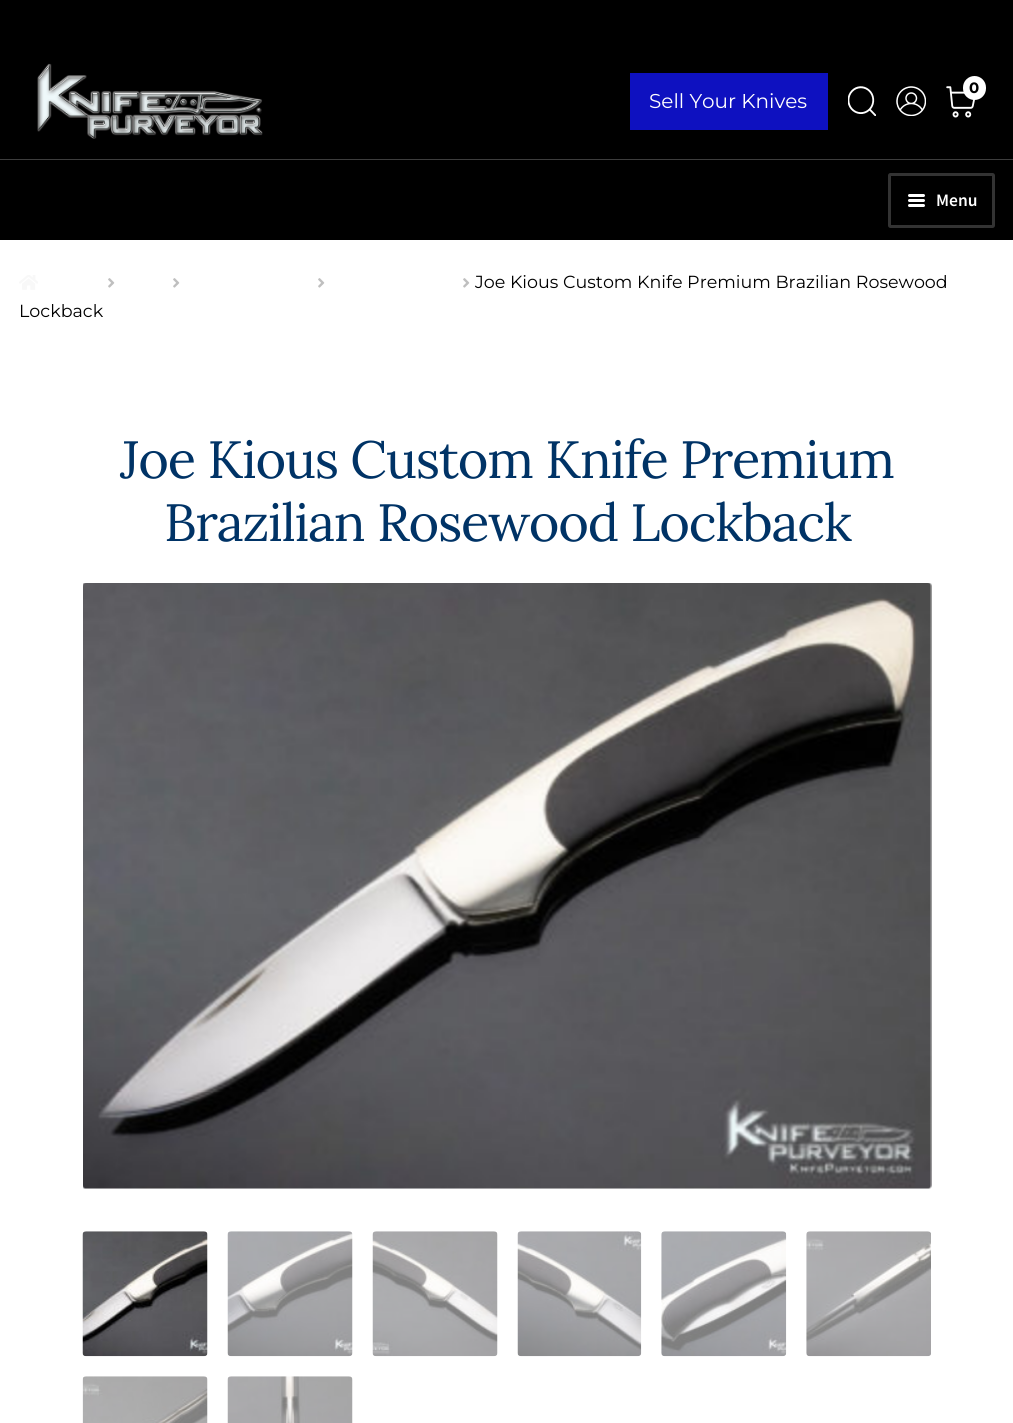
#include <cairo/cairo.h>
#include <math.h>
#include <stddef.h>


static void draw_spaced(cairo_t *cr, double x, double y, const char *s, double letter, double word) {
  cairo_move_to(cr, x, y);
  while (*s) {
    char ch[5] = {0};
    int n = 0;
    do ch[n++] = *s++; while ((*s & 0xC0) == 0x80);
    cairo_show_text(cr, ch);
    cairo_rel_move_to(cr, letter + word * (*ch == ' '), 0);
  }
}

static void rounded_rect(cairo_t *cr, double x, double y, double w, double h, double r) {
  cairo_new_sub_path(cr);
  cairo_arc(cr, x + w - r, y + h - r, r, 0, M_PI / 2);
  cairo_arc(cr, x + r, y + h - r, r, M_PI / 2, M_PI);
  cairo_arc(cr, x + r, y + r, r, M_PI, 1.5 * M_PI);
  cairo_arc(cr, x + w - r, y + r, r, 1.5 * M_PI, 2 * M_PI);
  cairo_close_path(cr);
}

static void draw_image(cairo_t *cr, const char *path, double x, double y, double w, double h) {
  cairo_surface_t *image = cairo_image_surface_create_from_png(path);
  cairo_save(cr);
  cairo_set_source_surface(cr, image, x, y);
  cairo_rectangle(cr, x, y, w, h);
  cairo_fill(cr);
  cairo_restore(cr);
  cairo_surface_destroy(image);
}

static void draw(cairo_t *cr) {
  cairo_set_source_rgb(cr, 1, 1, 1);
  cairo_paint(cr);
  cairo_set_source_rgb(cr, 0, 0, 0);
  cairo_rectangle(cr, 0, 0, 1013, 240);
  cairo_fill(cr);
  draw_image(cr, "images/1.png", 37, 63, 226, 76);
  cairo_set_source_rgb(cr, 14 / 255.0, 17 / 255.0, 192 / 255.0);
  cairo_rectangle(cr, 630, 73, 198, 57);
  cairo_fill(cr);
  draw_image(cr, "images/2.png", 848, 86, 28, 30);
  draw_image(cr, "images/3.png", 896, 86, 30, 30);
  draw_image(cr, "images/4.png", 946, 86, 30, 32);
  cairo_set_source_rgb(cr, 1, 1, 1);
  rounded_rect(cr, 963, 76, 23, 24, 11.5);
  cairo_fill(cr);
  cairo_set_source_rgb(cr, 61 / 255.0, 61 / 255.0, 61 / 255.0);
  cairo_rectangle(cr, 0, 159, 1013, 1);
  cairo_fill(cr);
  rounded_rect(cr, 889.5, 174.5, 104, 52, 1);
  cairo_set_source_rgb(cr, 51 / 255.0, 51 / 255.0, 51 / 255.0);
  cairo_set_line_width(cr, 3);
  cairo_stroke(cr);
  cairo_set_source_rgb(cr, 1, 1, 1);
  rounded_rect(cr, 908, 194, 17, 3, 1.5);
  cairo_fill(cr);
  rounded_rect(cr, 908, 199, 17, 3, 1.5);
  cairo_fill(cr);
  rounded_rect(cr, 908, 204, 17, 3, 1.5);
  cairo_fill(cr);
  draw_image(cr, "images/5.png", 19, 275, 19, 15);
  draw_image(cr, "images/6.png", 108, 278, 7, 10);
  draw_image(cr, "images/6.png", 173, 278, 7, 10);
  draw_image(cr, "images/6.png", 318, 278, 7, 10);
  draw_image(cr, "images/6.png", 463, 278, 7, 10);
  draw_image(cr, "images/7.png", 83, 583, 849, 606);
  draw_image(cr, "images/8.png", 82, 1231, 126, 126);
  draw_image(cr, "images/9.png", 227, 1231, 126, 126);
  draw_image(cr, "images/10.png", 372, 1231, 126, 126);
  draw_image(cr, "images/11.png", 517, 1231, 125, 126);
  draw_image(cr, "images/12.png", 661, 1231, 126, 126);
  draw_image(cr, "images/13.png", 806, 1231, 125, 126);
  draw_image(cr, "images/14.png", 82, 1376, 126, 47);
  draw_image(cr, "images/15.png", 227, 1376, 126, 47);
  cairo_select_font_face(cr, "Montserrat Thin", CAIRO_FONT_SLANT_NORMAL, CAIRO_FONT_WEIGHT_NORMAL);
  cairo_set_font_size(cr, 20);
  cairo_move_to(cr, 649, 108);
  cairo_show_text(cr, "Sell Your Knives");
  cairo_select_font_face(cr, "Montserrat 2 Thin", CAIRO_FONT_SLANT_NORMAL, CAIRO_FONT_WEIGHT_NORMAL);
  cairo_set_font_size(cr, 15);
  cairo_set_source_rgb(cr, 0, 0, 0);
  cairo_move_to(cr, 969, 93);
  cairo_show_text(cr, "0");
  cairo_select_font_face(cr, "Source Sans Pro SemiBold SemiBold", CAIRO_FONT_SLANT_NORMAL, CAIRO_FONT_WEIGHT_NORMAL);
  cairo_set_font_size(cr, 17.5);
  cairo_set_source_rgb(cr, 1, 1, 1);
  cairo_move_to(cr, 936, 206);
  cairo_show_text(cr, "Menu");
  cairo_select_font_face(cr, "Montserrat Thin", CAIRO_FONT_SLANT_NORMAL, CAIRO_FONT_WEIGHT_NORMAL);
  cairo_set_source_rgb(cr, 0, 0, 0);
  cairo_move_to(cr, 475, 288);
  cairo_show_text(cr, "Joe Kious Custom Knife Premium Brazilian Rosewood");
  cairo_move_to(cr, 19, 317);
  cairo_show_text(cr, "Lockback");
  cairo_select_font_face(cr, "Lora", CAIRO_FONT_SLANT_NORMAL, CAIRO_FONT_WEIGHT_NORMAL);
  cairo_set_font_size(cr, 52.4);
  cairo_set_source_rgb(cr, 0, 51 / 255.0, 102 / 255.0);
  draw_spaced(cr, 120, 478, "Joe Kious Custom Knife Premium", -1.25, 0);
  draw_spaced(cr, 164, 541, "Brazilian Rosewood Lockback", -1.25, 0);
}

int main(void) {
  cairo_surface_t *surface = cairo_image_surface_create(CAIRO_FORMAT_RGB24, 1013, 1423);
  cairo_t *cr = cairo_create(surface);
  cairo_font_options_t *options = cairo_font_options_create();
  cairo_font_options_set_hint_metrics(options, CAIRO_HINT_METRICS_OFF);
  cairo_font_options_set_hint_style(options, CAIRO_HINT_STYLE_NONE);
  cairo_set_font_options(cr, options);
  cairo_set_miter_limit(cr, 4);
  draw(cr);
  cairo_surface_write_to_png(surface, "out.png");
  cairo_font_options_destroy(options);
  cairo_destroy(cr);
  cairo_surface_destroy(surface);
  return 0;
}
